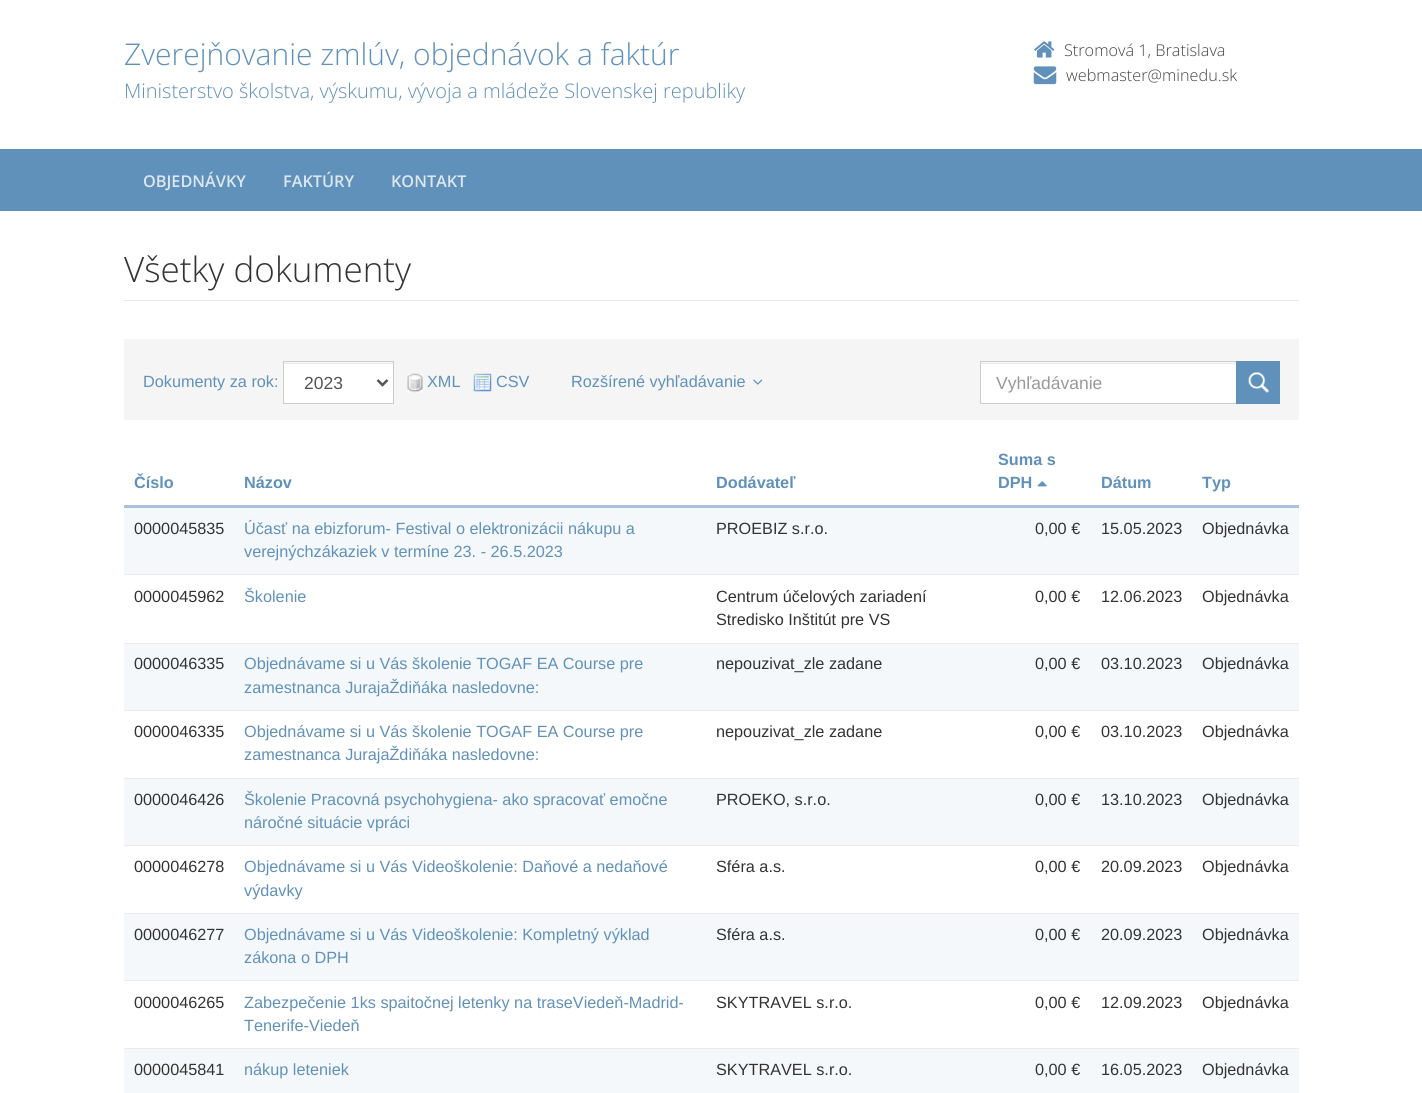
#include <cairo/cairo.h>
#include <math.h>
#include <stddef.h>


static void draw_image(cairo_t *cr, const char *path, double x, double y, double w, double h) {
  cairo_surface_t *image = cairo_image_surface_create_from_png(path);
  cairo_save(cr);
  cairo_set_source_surface(cr, image, x, y);
  cairo_rectangle(cr, x, y, w, h);
  cairo_fill(cr);
  cairo_restore(cr);
  cairo_surface_destroy(image);
}

static void draw(cairo_t *cr) {
  cairo_set_source_rgb(cr, 1, 1, 1);
  cairo_paint(cr);
  draw_image(cr, "images/1.png", 1034, 41, 21, 17);
  draw_image(cr, "images/2.png", 1033, 66, 24, 19);
  cairo_set_source_rgb(cr, 96 / 255.0, 145 / 255.0, 186 / 255.0);
  cairo_rectangle(cr, 0, 149, 1422, 62);
  cairo_fill(cr);
  cairo_set_source_rgb(cr, 232 / 255.0, 232 / 255.0, 232 / 255.0);
  cairo_rectangle(cr, 124, 300, 1175, 1);
  cairo_fill(cr);
  cairo_set_source_rgb(cr, 245 / 255.0, 245 / 255.0, 245 / 255.0);
  cairo_rectangle(cr, 124, 339, 1175, 81);
  cairo_fill(cr);
  cairo_set_source_rgb(cr, 1, 1, 1);
  cairo_rectangle(cr, 284, 364, 109, 39);
  cairo_fill(cr);
  cairo_set_source_rgb(cr, 236 / 255.0, 236 / 255.0, 236 / 255.0);
  cairo_rectangle(cr, 284, 363, 109, 1);
  cairo_fill(cr);
  cairo_rectangle(cr, 283.5, 361.5, 110, 42);
  cairo_set_source_rgb(cr, 204 / 255.0, 204 / 255.0, 204 / 255.0);
  cairo_set_line_width(cr, 1);
  cairo_stroke(cr);
  cairo_new_path(cr);
  cairo_move_to(cr, 377.5, 380);
  cairo_line_to(cr, 382.5, 385);
  cairo_line_to(cr, 387.5, 380);
  cairo_set_source_rgb(cr, 85 / 255.0, 85 / 255.0, 85 / 255.0);
  cairo_set_line_width(cr, 2.5);
  cairo_stroke(cr);
  draw_image(cr, "images/3.png", 407, 373, 16, 20);
  draw_image(cr, "images/4.png", 473, 373, 19, 19);
  draw_image(cr, "images/5.png", 753, 379, 10, 6);
  cairo_set_source_rgb(cr, 1, 1, 1);
  cairo_rectangle(cr, 981, 364, 255, 39);
  cairo_fill(cr);
  cairo_set_source_rgb(cr, 236 / 255.0, 236 / 255.0, 236 / 255.0);
  cairo_rectangle(cr, 981, 363, 257, 1);
  cairo_fill(cr);
  cairo_rectangle(cr, 980.5, 361.5, 258, 42);
  cairo_set_source_rgb(cr, 204 / 255.0, 204 / 255.0, 204 / 255.0);
  cairo_set_line_width(cr, 1);
  cairo_stroke(cr);
  cairo_set_source_rgb(cr, 96 / 255.0, 145 / 255.0, 186 / 255.0);
  cairo_rectangle(cr, 1236, 361, 44, 43);
  cairo_fill(cr);
  draw_image(cr, "images/6.png", 1248, 372, 21, 21);
  draw_image(cr, "images/7.png", 1037, 481, 10, 6);
  cairo_set_source_rgb(cr, 167 / 255.0, 194 / 255.0, 217 / 255.0);
  cairo_rectangle(cr, 124, 505, 1175, 3);
  cairo_fill(cr);
  cairo_set_source_rgb(cr, 245 / 255.0, 248 / 255.0, 251 / 255.0);
  cairo_rectangle(cr, 124, 508, 1175, 66);
  cairo_fill(cr);
  cairo_set_source_rgb(cr, 235 / 255.0, 235 / 255.0, 235 / 255.0);
  cairo_rectangle(cr, 124, 574, 1175, 1);
  cairo_fill(cr);
  cairo_set_source_rgb(cr, 245 / 255.0, 248 / 255.0, 251 / 255.0);
  cairo_rectangle(cr, 124, 644, 1175, 66);
  cairo_fill(cr);
  cairo_set_source_rgb(cr, 235 / 255.0, 235 / 255.0, 235 / 255.0);
  cairo_rectangle(cr, 124, 643, 1175, 1);
  cairo_fill(cr);
  cairo_rectangle(cr, 124, 710, 1175, 1);
  cairo_fill(cr);
  cairo_set_source_rgb(cr, 245 / 255.0, 248 / 255.0, 251 / 255.0);
  cairo_rectangle(cr, 124, 779, 1175, 66);
  cairo_fill(cr);
  cairo_set_source_rgb(cr, 235 / 255.0, 235 / 255.0, 235 / 255.0);
  cairo_rectangle(cr, 124, 778, 1175, 1);
  cairo_fill(cr);
  cairo_rectangle(cr, 124, 845, 1175, 1);
  cairo_fill(cr);
  cairo_set_source_rgb(cr, 245 / 255.0, 248 / 255.0, 251 / 255.0);
  cairo_rectangle(cr, 124, 914, 1175, 66);
  cairo_fill(cr);
  cairo_set_source_rgb(cr, 235 / 255.0, 235 / 255.0, 235 / 255.0);
  cairo_rectangle(cr, 124, 913, 1175, 1);
  cairo_fill(cr);
  cairo_rectangle(cr, 124, 980, 1175, 1);
  cairo_fill(cr);
  cairo_set_source_rgb(cr, 245 / 255.0, 248 / 255.0, 251 / 255.0);
  cairo_rectangle(cr, 124, 1049, 1175, 44);
  cairo_fill(cr);
  cairo_set_source_rgb(cr, 235 / 255.0, 235 / 255.0, 235 / 255.0);
  cairo_rectangle(cr, 124, 1048, 1175, 1);
  cairo_fill(cr);
  cairo_select_font_face(cr, "Open Sans Light", CAIRO_FONT_SLANT_NORMAL, CAIRO_FONT_WEIGHT_NORMAL);
  cairo_set_font_size(cr, 30);
  cairo_set_source_rgb(cr, 96 / 255.0, 145 / 255.0, 186 / 255.0);
  cairo_move_to(cr, 124, 65);
  cairo_show_text(cr, "Zverejňovanie zmlúv, objednávok a faktúr");
  cairo_set_font_size(cr, 20);
  cairo_move_to(cr, 124, 98);
  cairo_show_text(cr, "Ministerstvo školstva, výskumu, vývoja a mládeže Slovenskej republiky");
  cairo_set_font_size(cr, 16.25);
  cairo_set_source_rgb(cr, 68 / 255.0, 68 / 255.0, 68 / 255.0);
  cairo_move_to(cr, 1064, 56);
  cairo_show_text(cr, "Stromová 1, Bratislava");
  cairo_move_to(cr, 1066, 81);
  cairo_show_text(cr, "webmaster@minedu.sk");
  cairo_select_font_face(cr, "Open Sans SemiBold", CAIRO_FONT_SLANT_NORMAL, CAIRO_FONT_WEIGHT_NORMAL);
  cairo_set_source_rgb(cr, 220 / 255.0, 231 / 255.0, 240 / 255.0);
  cairo_move_to(cr, 143, 187);
  cairo_show_text(cr, "OBJEDNÁVKY");
  cairo_move_to(cr, 283, 187);
  cairo_show_text(cr, "FAKTÚRY");
  cairo_move_to(cr, 391, 187);
  cairo_show_text(cr, "KONTAKT");
  cairo_select_font_face(cr, "Open Sans Light", CAIRO_FONT_SLANT_NORMAL, CAIRO_FONT_WEIGHT_NORMAL);
  cairo_set_font_size(cr, 35);
  cairo_set_source_rgb(cr, 51 / 255.0, 51 / 255.0, 51 / 255.0);
  cairo_move_to(cr, 124, 282);
  cairo_show_text(cr, "Všetky dokumenty");
  cairo_select_font_face(cr, "Liberation Sans", CAIRO_FONT_SLANT_NORMAL, CAIRO_FONT_WEIGHT_NORMAL);
  cairo_set_font_size(cr, 16.25);
  cairo_set_source_rgb(cr, 96 / 255.0, 145 / 255.0, 186 / 255.0);
  cairo_move_to(cr, 143, 387);
  cairo_show_text(cr, "Dokumenty za rok:");
  cairo_set_font_size(cr, 17.5);
  cairo_set_source_rgb(cr, 85 / 255.0, 85 / 255.0, 85 / 255.0);
  cairo_move_to(cr, 304, 389);
  cairo_show_text(cr, "2023");
  cairo_set_font_size(cr, 16.25);
  cairo_set_source_rgb(cr, 96 / 255.0, 145 / 255.0, 186 / 255.0);
  cairo_move_to(cr, 427, 387);
  cairo_show_text(cr, "XML");
  cairo_move_to(cr, 496, 387);
  cairo_show_text(cr, "CSV");
  cairo_move_to(cr, 571, 387);
  cairo_show_text(cr, "Rozšírené vyhľadávanie");
  cairo_set_font_size(cr, 17.5);
  cairo_set_source_rgb(cr, 153 / 255.0, 153 / 255.0, 153 / 255.0);
  cairo_move_to(cr, 996, 389);
  cairo_show_text(cr, "Vyhľadávanie");
  cairo_select_font_face(cr, "Liberation Sans", CAIRO_FONT_SLANT_NORMAL, CAIRO_FONT_WEIGHT_BOLD);
  cairo_set_font_size(cr, 16.25);
  cairo_set_source_rgb(cr, 96 / 255.0, 145 / 255.0, 186 / 255.0);
  cairo_move_to(cr, 134, 488);
  cairo_show_text(cr, "Číslo");
  cairo_move_to(cr, 244, 488);
  cairo_show_text(cr, "Názov");
  cairo_move_to(cr, 716, 488);
  cairo_show_text(cr, "Dodávateľ");
  cairo_move_to(cr, 998, 465);
  cairo_show_text(cr, "Suma s");
  cairo_move_to(cr, 998, 488);
  cairo_show_text(cr, "DPH");
  cairo_move_to(cr, 1101, 488);
  cairo_show_text(cr, "Dátum");
  cairo_move_to(cr, 1202, 488);
  cairo_show_text(cr, "Typ");
  cairo_select_font_face(cr, "Liberation Sans", CAIRO_FONT_SLANT_NORMAL, CAIRO_FONT_WEIGHT_NORMAL);
  cairo_set_source_rgb(cr, 51 / 255.0, 51 / 255.0, 51 / 255.0);
  cairo_move_to(cr, 134, 534);
  cairo_show_text(cr, "0000045835");
  cairo_set_source_rgb(cr, 96 / 255.0, 145 / 255.0, 186 / 255.0);
  cairo_move_to(cr, 244, 534);
  cairo_show_text(cr, "Účasť na ebizforum- Festival o elektronizácii nákupu a");
  cairo_move_to(cr, 244, 557);
  cairo_show_text(cr, "verejnýchzákaziek v termíne 23. - 26.5.2023");
  cairo_set_source_rgb(cr, 51 / 255.0, 51 / 255.0, 51 / 255.0);
  cairo_move_to(cr, 716, 534);
  cairo_show_text(cr, "PROEBIZ s.r.o.");
  cairo_move_to(cr, 1035, 534);
  cairo_show_text(cr, "0,00 €");
  cairo_move_to(cr, 1101, 534);
  cairo_show_text(cr, "15.05.2023");
  cairo_move_to(cr, 1202, 534);
  cairo_show_text(cr, "Objednávka");
  cairo_move_to(cr, 134, 602);
  cairo_show_text(cr, "0000045962");
  cairo_set_source_rgb(cr, 96 / 255.0, 145 / 255.0, 186 / 255.0);
  cairo_move_to(cr, 244, 602);
  cairo_show_text(cr, "Školenie");
  cairo_set_source_rgb(cr, 51 / 255.0, 51 / 255.0, 51 / 255.0);
  cairo_move_to(cr, 716, 602);
  cairo_show_text(cr, "Centrum účelových zariadení");
  cairo_move_to(cr, 716, 625);
  cairo_show_text(cr, "Stredisko Inštitút pre VS");
  cairo_move_to(cr, 1035, 602);
  cairo_show_text(cr, "0,00 €");
  cairo_move_to(cr, 1101, 602);
  cairo_show_text(cr, "12.06.2023");
  cairo_move_to(cr, 1202, 602);
  cairo_show_text(cr, "Objednávka");
  cairo_move_to(cr, 134, 669);
  cairo_show_text(cr, "0000046335");
  cairo_set_source_rgb(cr, 96 / 255.0, 145 / 255.0, 186 / 255.0);
  cairo_move_to(cr, 244, 669);
  cairo_show_text(cr, "Objednávame si u Vás školenie TOGAF EA Course pre");
  cairo_move_to(cr, 244, 693);
  cairo_show_text(cr, "zamestnanca JurajaŽdiňáka nasledovne:");
  cairo_set_source_rgb(cr, 51 / 255.0, 51 / 255.0, 51 / 255.0);
  cairo_move_to(cr, 716, 669);
  cairo_show_text(cr, "nepouzivat_zle zadane");
  cairo_move_to(cr, 1035, 669);
  cairo_show_text(cr, "0,00 €");
  cairo_move_to(cr, 1101, 669);
  cairo_show_text(cr, "03.10.2023");
  cairo_move_to(cr, 1202, 669);
  cairo_show_text(cr, "Objednávka");
  cairo_move_to(cr, 134, 737);
  cairo_show_text(cr, "0000046335");
  cairo_set_source_rgb(cr, 96 / 255.0, 145 / 255.0, 186 / 255.0);
  cairo_move_to(cr, 244, 737);
  cairo_show_text(cr, "Objednávame si u Vás školenie TOGAF EA Course pre");
  cairo_move_to(cr, 244, 760);
  cairo_show_text(cr, "zamestnanca JurajaŽdiňáka nasledovne:");
  cairo_set_source_rgb(cr, 51 / 255.0, 51 / 255.0, 51 / 255.0);
  cairo_move_to(cr, 716, 737);
  cairo_show_text(cr, "nepouzivat_zle zadane");
  cairo_move_to(cr, 1035, 737);
  cairo_show_text(cr, "0,00 €");
  cairo_move_to(cr, 1101, 737);
  cairo_show_text(cr, "03.10.2023");
  cairo_move_to(cr, 1202, 737);
  cairo_show_text(cr, "Objednávka");
  cairo_move_to(cr, 134, 805);
  cairo_show_text(cr, "0000046426");
  cairo_set_source_rgb(cr, 96 / 255.0, 145 / 255.0, 186 / 255.0);
  cairo_move_to(cr, 244, 805);
  cairo_show_text(cr, "Školenie Pracovná psychohygiena- ako spracovať emočne");
  cairo_move_to(cr, 244, 828);
  cairo_show_text(cr, "náročné situácie vpráci");
  cairo_set_source_rgb(cr, 51 / 255.0, 51 / 255.0, 51 / 255.0);
  cairo_move_to(cr, 716, 805);
  cairo_show_text(cr, "PROEKO, s.r.o.");
  cairo_move_to(cr, 1035, 805);
  cairo_show_text(cr, "0,00 €");
  cairo_move_to(cr, 1101, 805);
  cairo_show_text(cr, "13.10.2023");
  cairo_move_to(cr, 1202, 805);
  cairo_show_text(cr, "Objednávka");
  cairo_move_to(cr, 134, 872);
  cairo_show_text(cr, "0000046278");
  cairo_set_source_rgb(cr, 96 / 255.0, 145 / 255.0, 186 / 255.0);
  cairo_move_to(cr, 244, 872);
  cairo_show_text(cr, "Objednávame si u Vás Videoškolenie: Daňové a nedaňové");
  cairo_move_to(cr, 244, 896);
  cairo_show_text(cr, "výdavky");
  cairo_set_source_rgb(cr, 51 / 255.0, 51 / 255.0, 51 / 255.0);
  cairo_move_to(cr, 716, 872);
  cairo_show_text(cr, "Sféra a.s.");
  cairo_move_to(cr, 1035, 872);
  cairo_show_text(cr, "0,00 €");
  cairo_move_to(cr, 1101, 872);
  cairo_show_text(cr, "20.09.2023");
  cairo_move_to(cr, 1202, 872);
  cairo_show_text(cr, "Objednávka");
  cairo_move_to(cr, 134, 940);
  cairo_show_text(cr, "0000046277");
  cairo_set_source_rgb(cr, 96 / 255.0, 145 / 255.0, 186 / 255.0);
  cairo_move_to(cr, 244, 940);
  cairo_show_text(cr, "Objednávame si u Vás Videoškolenie: Kompletný výklad");
  cairo_move_to(cr, 244, 963);
  cairo_show_text(cr, "zákona o DPH");
  cairo_set_source_rgb(cr, 51 / 255.0, 51 / 255.0, 51 / 255.0);
  cairo_move_to(cr, 716, 940);
  cairo_show_text(cr, "Sféra a.s.");
  cairo_move_to(cr, 1035, 940);
  cairo_show_text(cr, "0,00 €");
  cairo_move_to(cr, 1101, 940);
  cairo_show_text(cr, "20.09.2023");
  cairo_move_to(cr, 1202, 940);
  cairo_show_text(cr, "Objednávka");
  cairo_move_to(cr, 134, 1008);
  cairo_show_text(cr, "0000046265");
  cairo_set_source_rgb(cr, 96 / 255.0, 145 / 255.0, 186 / 255.0);
  cairo_move_to(cr, 244, 1008);
  cairo_show_text(cr, "Zabezpečenie 1ks spaitočnej letenky na traseViedeň-Madrid-");
  cairo_move_to(cr, 244, 1031);
  cairo_show_text(cr, "Tenerife-Viedeň");
  cairo_set_source_rgb(cr, 51 / 255.0, 51 / 255.0, 51 / 255.0);
  cairo_move_to(cr, 716, 1008);
  cairo_show_text(cr, "SKYTRAVEL s.r.o.");
  cairo_move_to(cr, 1035, 1008);
  cairo_show_text(cr, "0,00 €");
  cairo_move_to(cr, 1101, 1008);
  cairo_show_text(cr, "12.09.2023");
  cairo_move_to(cr, 1202, 1008);
  cairo_show_text(cr, "Objednávka");
  cairo_move_to(cr, 134, 1075);
  cairo_show_text(cr, "0000045841");
  cairo_set_source_rgb(cr, 96 / 255.0, 145 / 255.0, 186 / 255.0);
  cairo_move_to(cr, 244, 1075);
  cairo_show_text(cr, "nákup leteniek");
  cairo_set_source_rgb(cr, 51 / 255.0, 51 / 255.0, 51 / 255.0);
  cairo_move_to(cr, 716, 1075);
  cairo_show_text(cr, "SKYTRAVEL s.r.o.");
  cairo_move_to(cr, 1035, 1075);
  cairo_show_text(cr, "0,00 €");
  cairo_move_to(cr, 1101, 1075);
  cairo_show_text(cr, "16.05.2023");
  cairo_move_to(cr, 1202, 1075);
  cairo_show_text(cr, "Objednávka");
}

int main(void) {
  cairo_surface_t *surface = cairo_image_surface_create(CAIRO_FORMAT_RGB24, 1422, 1093);
  cairo_t *cr = cairo_create(surface);
  cairo_font_options_t *options = cairo_font_options_create();
  cairo_font_options_set_hint_metrics(options, CAIRO_HINT_METRICS_OFF);
  cairo_font_options_set_hint_style(options, CAIRO_HINT_STYLE_NONE);
  cairo_set_font_options(cr, options);
  cairo_set_miter_limit(cr, 4);
  draw(cr);
  cairo_surface_write_to_png(surface, "out.png");
  cairo_font_options_destroy(options);
  cairo_destroy(cr);
  cairo_surface_destroy(surface);
  return 0;
}
